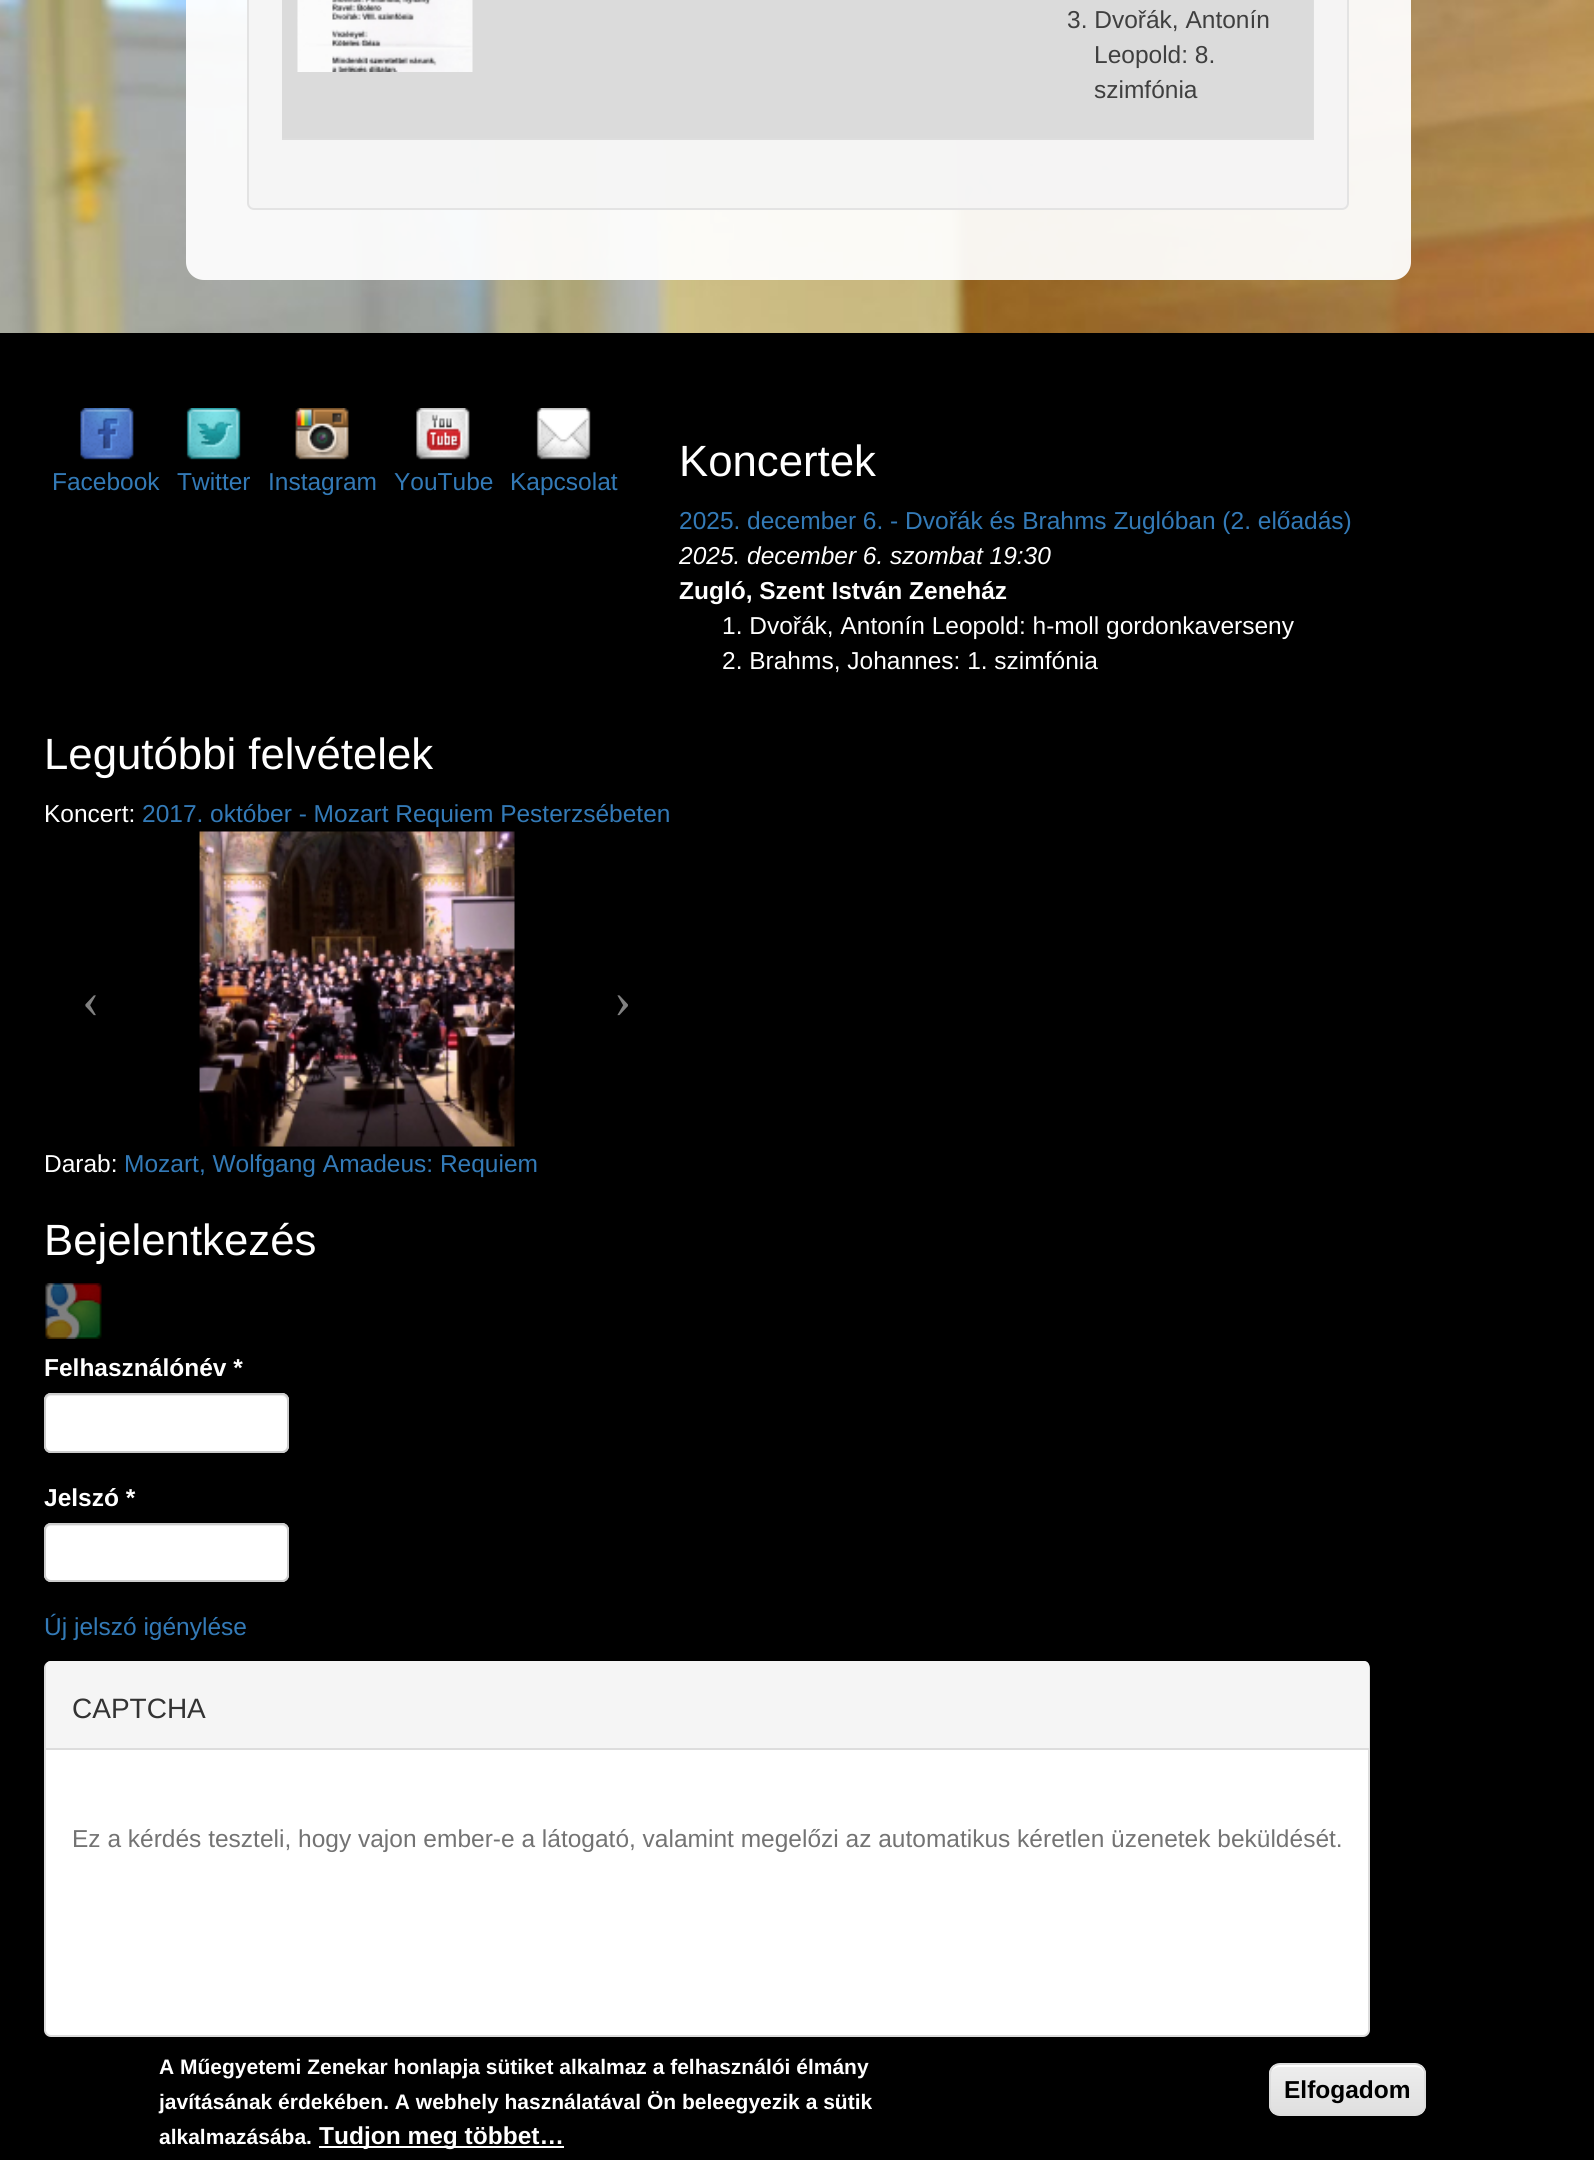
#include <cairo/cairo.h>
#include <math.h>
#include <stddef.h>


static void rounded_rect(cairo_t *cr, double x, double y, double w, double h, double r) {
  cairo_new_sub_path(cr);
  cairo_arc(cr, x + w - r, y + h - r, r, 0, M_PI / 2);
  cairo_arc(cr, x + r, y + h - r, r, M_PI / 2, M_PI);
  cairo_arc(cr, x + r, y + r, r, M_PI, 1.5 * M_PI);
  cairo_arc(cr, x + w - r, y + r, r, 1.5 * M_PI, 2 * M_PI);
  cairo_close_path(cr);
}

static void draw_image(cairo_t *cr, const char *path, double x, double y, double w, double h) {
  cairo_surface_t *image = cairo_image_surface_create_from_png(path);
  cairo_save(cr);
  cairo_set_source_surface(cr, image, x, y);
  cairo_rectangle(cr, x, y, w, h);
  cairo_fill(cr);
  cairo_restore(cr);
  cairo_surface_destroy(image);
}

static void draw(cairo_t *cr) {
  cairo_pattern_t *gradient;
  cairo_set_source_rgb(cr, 1, 1, 1);
  cairo_paint(cr);
  draw_image(cr, "images/1.png", 0, 0, 1594, 333);
  cairo_set_source_rgba(cr, 1, 1, 1, 0.93);
  rounded_rect(cr, 186, -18, 1225, 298, 18);
  cairo_fill(cr);
  cairo_set_source_rgba(cr, 245 / 255.0, 245 / 255.0, 245 / 255.0, 0.93);
  rounded_rect(cr, 247, -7, 1102, 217, 7);
  cairo_fill(cr);
  rounded_rect(cr, 248, -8, 1100, 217, 6);
  cairo_set_source_rgba(cr, 227 / 255.0, 227 / 255.0, 227 / 255.0, 0.93);
  cairo_stroke(cr);
  cairo_set_source_rgba(cr, 221 / 255.0, 221 / 255.0, 221 / 255.0, 0.93);
  cairo_rectangle(cr, 282, 138, 2, 2);
  cairo_fill(cr);
  cairo_set_source_rgb(cr, 219 / 255.0, 219 / 255.0, 219 / 255.0);
  cairo_rectangle(cr, 282, 0, 1031, 138);
  cairo_fill(cr);
  draw_image(cr, "images/2.png", 297, 0, 176, 72);
  cairo_set_source_rgb(cr, 221 / 255.0, 221 / 255.0, 221 / 255.0);
  cairo_rectangle(cr, 1313, 0, 1, 140);
  cairo_fill(cr);
  cairo_rectangle(cr, 282, 138, 1032, 2);
  cairo_fill(cr);
  cairo_set_source_rgb(cr, 0, 0, 0);
  cairo_rectangle(cr, 0, 333, 1594, 1827);
  cairo_fill(cr);
  draw_image(cr, "images/3.png", 80, 408, 54, 52);
  draw_image(cr, "images/4.png", 186, 408, 55, 52);
  draw_image(cr, "images/5.png", 295, 408, 54, 52);
  draw_image(cr, "images/6.png", 416, 408, 54, 52);
  draw_image(cr, "images/7.png", 536, 408, 55, 52);
  draw_image(cr, "images/8.png", 199, 831, 316, 316);
  gradient = cairo_pattern_create_linear(44, 989, 138, 989);
  cairo_pattern_add_color_stop_rgba(gradient, 0, 0, 0, 0, 0.25);
  cairo_pattern_add_color_stop_rgba(gradient, 1, 0, 0, 0, 0);
  cairo_set_source(cr, gradient);
  cairo_pattern_destroy(gradient);
  cairo_rectangle(cr, 45, 805, 85, 368);
  cairo_fill(cr);
  gradient = cairo_pattern_create_linear(576, 989, 670, 989);
  cairo_pattern_add_color_stop_rgba(gradient, 0, 0, 0, 0, 0);
  cairo_pattern_add_color_stop_rgba(gradient, 1, 0, 0, 0, 0.25);
  cairo_set_source(cr, gradient);
  cairo_pattern_destroy(gradient);
  cairo_rectangle(cr, 584, 804, 85, 19);
  cairo_fill(cr);
  draw_image(cr, "images/9.png", 45, 1283, 57, 56);
  cairo_set_source_rgb(cr, 1, 1, 1);
  rounded_rect(cr, 44, 1393, 245, 60, 7);
  cairo_fill(cr);
  cairo_set_source_rgb(cr, 236 / 255.0, 236 / 255.0, 236 / 255.0);
  cairo_new_path(cr);
  cairo_move_to(cr, 51, 1396);
  cairo_line_to(cr, 282, 1396);
  cairo_curve_to(cr, 285, 1396, 287, 1399, 287, 1402);
  cairo_curve_to(cr, 287, 1399, 287, 1396, 283, 1395);
  cairo_line_to(cr, 50, 1395);
  cairo_curve_to(cr, 46, 1396, 46, 1399, 46, 1402);
  cairo_curve_to(cr, 46, 1399, 48, 1396, 51, 1396);
  cairo_close_path(cr);
  cairo_fill(cr);
  rounded_rect(cr, 45, 1394, 243, 58, 6);
  cairo_set_source_rgb(cr, 204 / 255.0, 204 / 255.0, 204 / 255.0);
  cairo_stroke(cr);
  cairo_set_source_rgb(cr, 1, 1, 1);
  rounded_rect(cr, 44, 1523, 245, 59, 7);
  cairo_fill(cr);
  cairo_set_source_rgb(cr, 236 / 255.0, 236 / 255.0, 236 / 255.0);
  cairo_new_path(cr);
  cairo_move_to(cr, 51, 1526);
  cairo_line_to(cr, 282, 1526);
  cairo_curve_to(cr, 285, 1526, 287, 1528, 287, 1531);
  cairo_curve_to(cr, 287, 1528, 287, 1525, 283, 1524);
  cairo_line_to(cr, 50, 1524);
  cairo_curve_to(cr, 46, 1525, 46, 1528, 46, 1531);
  cairo_curve_to(cr, 46, 1528, 48, 1526, 51, 1526);
  cairo_close_path(cr);
  cairo_fill(cr);
  rounded_rect(cr, 45, 1524, 243, 57, 6);
  cairo_set_source_rgb(cr, 204 / 255.0, 204 / 255.0, 204 / 255.0);
  cairo_stroke(cr);
  cairo_set_source_rgb(cr, 1, 1, 1);
  rounded_rect(cr, 45, 1662, 1324, 374, 6);
  cairo_fill_preserve(cr);
  cairo_set_source_rgb(cr, 221 / 255.0, 221 / 255.0, 221 / 255.0);
  cairo_stroke(cr);
  cairo_set_source_rgb(cr, 245 / 255.0, 245 / 255.0, 245 / 255.0);
  cairo_new_path(cr);
  cairo_move_to(cr, 51, 1661);
  cairo_line_to(cr, 1364, 1661);
  cairo_curve_to(cr, 1367, 1661, 1369, 1663, 1369, 1666);
  cairo_line_to(cr, 1369, 1750);
  cairo_line_to(cr, 46, 1750);
  cairo_line_to(cr, 46, 1666);
  cairo_curve_to(cr, 46, 1663, 48, 1661, 51, 1661);
  cairo_close_path(cr);
  cairo_fill(cr);
  cairo_set_source_rgb(cr, 221 / 255.0, 221 / 255.0, 221 / 255.0);
  cairo_rectangle(cr, 46, 1748, 1323, 2);
  cairo_fill(cr);
  cairo_set_source_rgb(cr, 1, 1, 1);
  cairo_rectangle(cr, 319, 2146, 245, 2);
  cairo_fill(cr);
  cairo_save(cr);
  rounded_rect(cr, 1269, 2063, 157, 53, 11);
  cairo_clip(cr);
  gradient = cairo_pattern_create_linear(1348, 2065, 1348, 2114);
  cairo_pattern_add_color_stop_rgba(gradient, 0.05, 237 / 255.0, 237 / 255.0, 237 / 255.0, 1);
  cairo_pattern_add_color_stop_rgba(gradient, 1, 223 / 255.0, 223 / 255.0, 223 / 255.0, 1);
  cairo_set_source(cr, gradient);
  cairo_pattern_destroy(gradient);
  cairo_rectangle(cr, 1269, 2065, 157, 49);
  cairo_fill(cr);
  cairo_restore(cr);
  cairo_new_path(cr);
  cairo_move_to(cr, 1279, 2067);
  cairo_line_to(cr, 1416, 2067);
  cairo_curve_to(cr, 1421, 2067, 1424, 2071, 1424, 2076);
  cairo_line_to(cr, 1424, 2110);
  cairo_curve_to(cr, 1425, 2108, 1425, 2107, 1425, 2105);
  cairo_line_to(cr, 1425, 2074);
  cairo_curve_to(cr, 1425, 2069, 1421, 2065, 1416, 2065);
  cairo_line_to(cr, 1280, 2065);
  cairo_curve_to(cr, 1276, 2065, 1273, 2067, 1272, 2071);
  cairo_curve_to(cr, 1273, 2069, 1276, 2067, 1279, 2067);
  cairo_close_path(cr);
  cairo_fill(cr);
  rounded_rect(cr, 1270, 2064, 155, 51, 10);
  cairo_set_source_rgb(cr, 220 / 255.0, 220 / 255.0, 220 / 255.0);
  cairo_stroke(cr);
  cairo_select_font_face(cr, "Liberation Sans", CAIRO_FONT_SLANT_NORMAL, CAIRO_FONT_WEIGHT_NORMAL);
  cairo_set_font_size(cr, 24.5);
  cairo_set_source_rgb(cr, 63 / 255.0, 63 / 255.0, 63 / 255.0);
  cairo_move_to(cr, 1067, 28);
  cairo_show_text(cr, "3. Dvořák, Antonín");
  cairo_move_to(cr, 1094, 63);
  cairo_show_text(cr, "Leopold: 8.");
  cairo_move_to(cr, 1094, 98);
  cairo_show_text(cr, "szimfónia");
  cairo_set_source_rgb(cr, 51 / 255.0, 122 / 255.0, 183 / 255.0);
  cairo_move_to(cr, 52, 490);
  cairo_show_text(cr, "Facebook");
  cairo_move_to(cr, 177, 490);
  cairo_show_text(cr, "Twitter");
  cairo_move_to(cr, 268, 490);
  cairo_show_text(cr, "Instagram");
  cairo_move_to(cr, 394, 490);
  cairo_show_text(cr, "YouTube");
  cairo_move_to(cr, 510, 490);
  cairo_show_text(cr, "Kapcsolat");
  cairo_set_font_size(cr, 43.75);
  cairo_set_source_rgb(cr, 1, 1, 1);
  cairo_move_to(cr, 679, 476);
  cairo_show_text(cr, "Koncertek");
  cairo_set_font_size(cr, 24.5);
  cairo_set_source_rgb(cr, 51 / 255.0, 122 / 255.0, 183 / 255.0);
  cairo_move_to(cr, 679, 529);
  cairo_show_text(cr, "2025. december 6. - Dvořák és Brahms Zuglóban (2. előadás)");
  cairo_select_font_face(cr, "Liberation Sans", CAIRO_FONT_SLANT_ITALIC, CAIRO_FONT_WEIGHT_NORMAL);
  cairo_set_source_rgb(cr, 1, 1, 1);
  cairo_move_to(cr, 679, 564);
  cairo_show_text(cr, "2025. december 6. szombat 19:30");
  cairo_select_font_face(cr, "Liberation Sans", CAIRO_FONT_SLANT_NORMAL, CAIRO_FONT_WEIGHT_BOLD);
  cairo_move_to(cr, 679, 599);
  cairo_show_text(cr, "Zugló, Szent István Zeneház");
  cairo_select_font_face(cr, "Liberation Sans", CAIRO_FONT_SLANT_NORMAL, CAIRO_FONT_WEIGHT_NORMAL);
  cairo_move_to(cr, 722, 634);
  cairo_show_text(cr, "1. Dvořák, Antonín Leopold: h-moll gordonkaverseny");
  cairo_move_to(cr, 722, 669);
  cairo_show_text(cr, "2. Brahms, Johannes: 1. szimfónia");
  cairo_set_font_size(cr, 43.75);
  cairo_move_to(cr, 44, 769);
  cairo_show_text(cr, "Legutóbbi felvételek");
  cairo_set_font_size(cr, 24.5);
  cairo_move_to(cr, 44, 822);
  cairo_show_text(cr, "Koncert:");
  cairo_set_source_rgb(cr, 51 / 255.0, 122 / 255.0, 183 / 255.0);
  cairo_move_to(cr, 142, 822);
  cairo_show_text(cr, "2017. október - Mozart Requiem Pesterzsébeten");
  cairo_set_source_rgb(cr, 1, 1, 1);
  cairo_move_to(cr, 44, 1172);
  cairo_show_text(cr, "Darab:");
  cairo_set_source_rgb(cr, 51 / 255.0, 122 / 255.0, 183 / 255.0);
  cairo_move_to(cr, 124, 1172);
  cairo_show_text(cr, "Mozart, Wolfgang Amadeus: Requiem");
  cairo_select_font_face(cr, "Liberation Serif", CAIRO_FONT_SLANT_NORMAL, CAIRO_FONT_WEIGHT_NORMAL);
  cairo_set_font_size(cr, 52);
  cairo_set_source_rgb(cr, 128 / 255.0, 128 / 255.0, 128 / 255.0);
  cairo_move_to(cr, 82, 1017);
  cairo_show_text(cr, "‹");
  cairo_move_to(cr, 614, 1017);
  cairo_show_text(cr, "›");
  cairo_select_font_face(cr, "Liberation Sans", CAIRO_FONT_SLANT_NORMAL, CAIRO_FONT_WEIGHT_NORMAL);
  cairo_set_font_size(cr, 43.75);
  cairo_set_source_rgb(cr, 1, 1, 1);
  cairo_move_to(cr, 44, 1255);
  cairo_show_text(cr, "Bejelentkezés");
  cairo_select_font_face(cr, "Liberation Sans", CAIRO_FONT_SLANT_NORMAL, CAIRO_FONT_WEIGHT_BOLD);
  cairo_set_font_size(cr, 24.5);
  cairo_move_to(cr, 44, 1376);
  cairo_show_text(cr, "Felhasználónév *");
  cairo_move_to(cr, 44, 1506);
  cairo_show_text(cr, "Jelszó *");
  cairo_select_font_face(cr, "Liberation Sans", CAIRO_FONT_SLANT_NORMAL, CAIRO_FONT_WEIGHT_NORMAL);
  cairo_set_source_rgb(cr, 51 / 255.0, 122 / 255.0, 183 / 255.0);
  cairo_move_to(cr, 44, 1635);
  cairo_show_text(cr, "Új jelszó igénylése");
  cairo_set_font_size(cr, 28);
  cairo_set_source_rgb(cr, 51 / 255.0, 51 / 255.0, 51 / 255.0);
  cairo_move_to(cr, 72, 1718);
  cairo_show_text(cr, "CAPTCHA");
  cairo_set_font_size(cr, 24.5);
  cairo_set_source_rgb(cr, 115 / 255.0, 115 / 255.0, 115 / 255.0);
  cairo_move_to(cr, 72, 1847);
  cairo_show_text(cr, "Ez a kérdés teszteli, hogy vajon ember-e a látogató, valamint megelőzi az automatikus kéretlen üzenetek beküldését.");
  cairo_select_font_face(cr, "Liberation Sans", CAIRO_FONT_SLANT_NORMAL, CAIRO_FONT_WEIGHT_BOLD);
  cairo_set_font_size(cr, 21);
  cairo_set_source_rgb(cr, 1, 1, 1);
  cairo_move_to(cr, 159, 2074);
  cairo_show_text(cr, "A Műegyetemi Zenekar honlapja sütiket alkalmaz a felhasználói élmány");
  cairo_move_to(cr, 159, 2109);
  cairo_show_text(cr, "javításának érdekében. A webhely használatával Ön beleegyezik a sütik");
  cairo_move_to(cr, 159, 2144);
  cairo_show_text(cr, "alkalmazásába.");
  cairo_set_font_size(cr, 24.5);
  cairo_move_to(cr, 319, 2144);
  cairo_show_text(cr, "Tudjon meg többet…");
  cairo_set_source_rgb(cr, 0, 0, 0);
  cairo_move_to(cr, 1284, 2098);
  cairo_show_text(cr, "Elfogadom");
}

int main(void) {
  cairo_surface_t *surface = cairo_image_surface_create(CAIRO_FORMAT_RGB24, 1594, 2160);
  cairo_t *cr = cairo_create(surface);
  cairo_font_options_t *options = cairo_font_options_create();
  cairo_font_options_set_hint_metrics(options, CAIRO_HINT_METRICS_OFF);
  cairo_font_options_set_hint_style(options, CAIRO_HINT_STYLE_NONE);
  cairo_set_font_options(cr, options);
  cairo_set_miter_limit(cr, 4);
  draw(cr);
  cairo_surface_write_to_png(surface, "out.png");
  cairo_font_options_destroy(options);
  cairo_destroy(cr);
  cairo_surface_destroy(surface);
  return 0;
}
